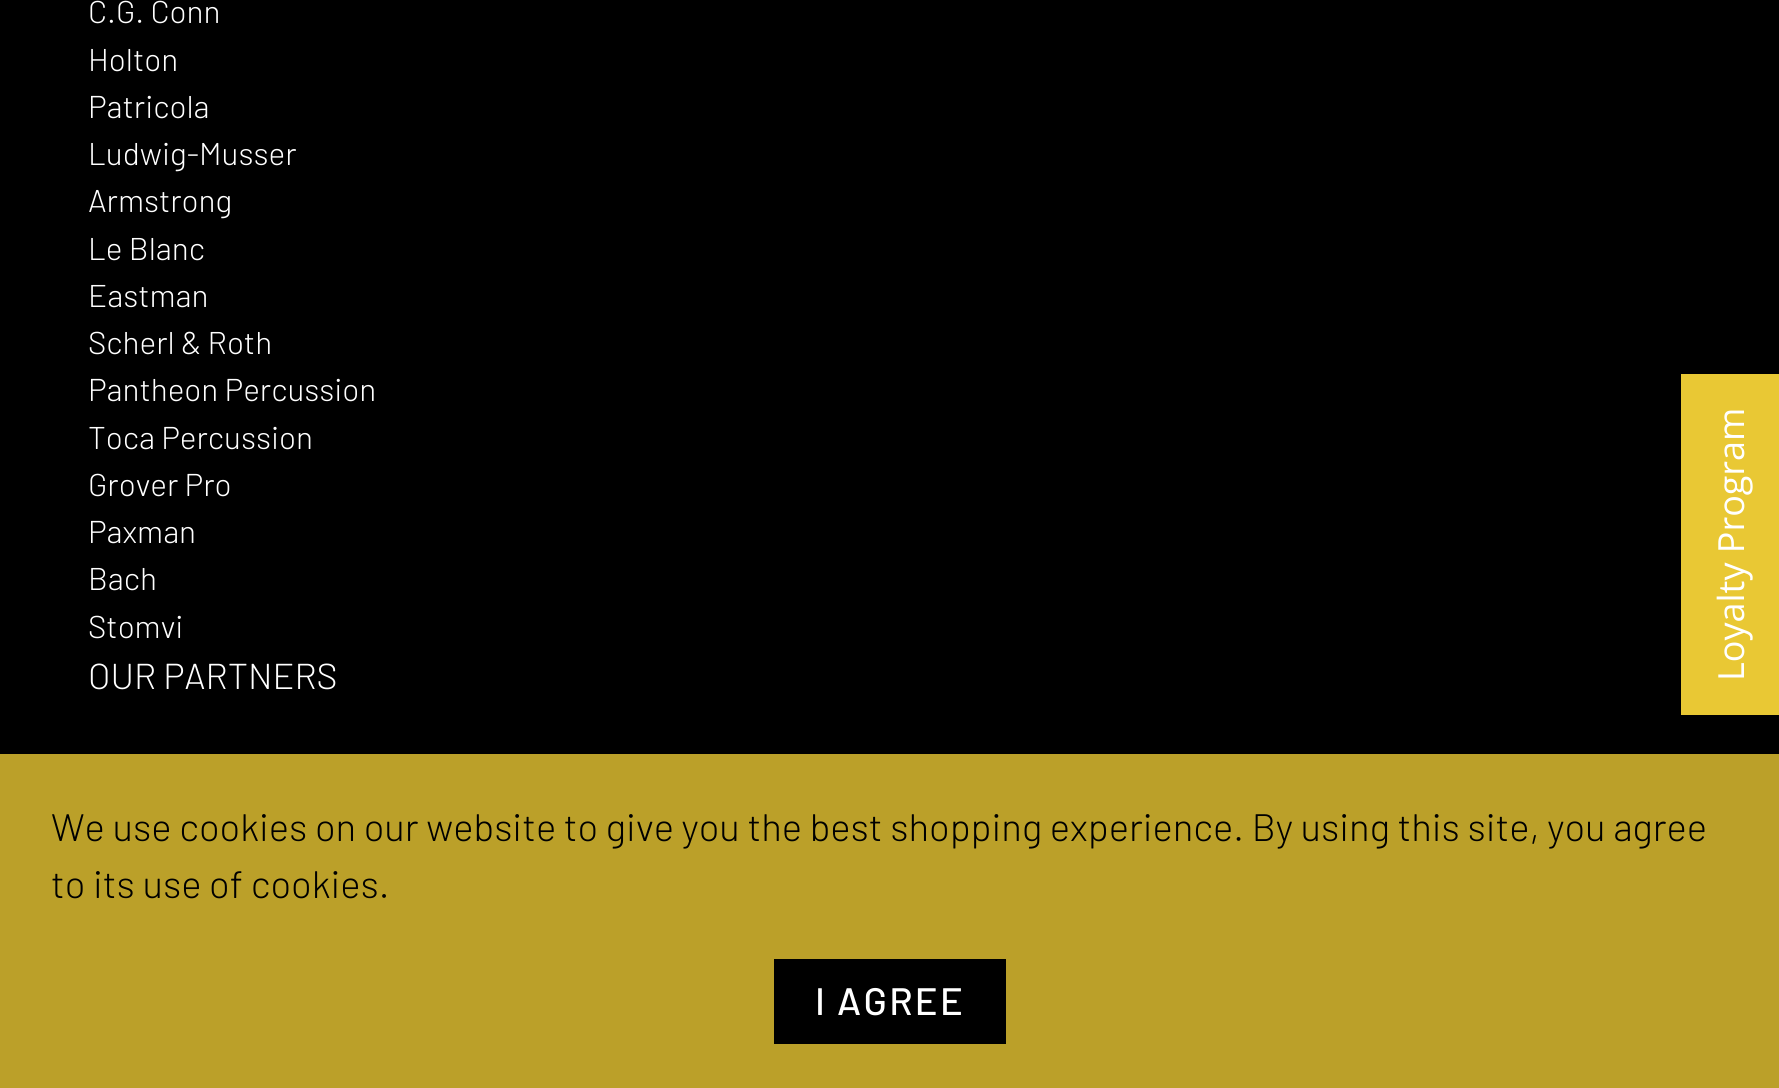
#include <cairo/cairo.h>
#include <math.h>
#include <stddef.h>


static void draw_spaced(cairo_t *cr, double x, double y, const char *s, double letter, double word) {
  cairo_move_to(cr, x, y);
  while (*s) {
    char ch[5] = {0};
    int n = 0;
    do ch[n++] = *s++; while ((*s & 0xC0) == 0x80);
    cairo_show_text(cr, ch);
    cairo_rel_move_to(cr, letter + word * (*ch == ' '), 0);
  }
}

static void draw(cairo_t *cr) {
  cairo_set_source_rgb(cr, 0, 0, 0);
  cairo_paint(cr);
  cairo_set_source_rgb(cr, 233 / 255.0, 200 / 255.0, 52 / 255.0);
  cairo_rectangle(cr, 1681, 374, 98, 341);
  cairo_fill(cr);
  cairo_set_source_rgba(cr, 233 / 255.0, 200 / 255.0, 52 / 255.0, 0.8);
  cairo_rectangle(cr, 0, 754, 1779, 334);
  cairo_fill(cr);
  cairo_set_source_rgb(cr, 0, 0, 0);
  cairo_rectangle(cr, 774, 959, 232, 85);
  cairo_fill(cr);
  cairo_select_font_face(cr, "Barlow Light", CAIRO_FONT_SLANT_NORMAL, CAIRO_FONT_WEIGHT_NORMAL);
  cairo_set_font_size(cr, 31.5);
  cairo_set_source_rgb(cr, 1, 1, 1);
  cairo_move_to(cr, 88, 23);
  cairo_show_text(cr, "C.G. Conn");
  cairo_move_to(cr, 88, 71);
  cairo_show_text(cr, "Holton");
  cairo_move_to(cr, 88, 118);
  cairo_show_text(cr, "Patricola");
  cairo_move_to(cr, 88, 165);
  cairo_show_text(cr, "Ludwig-Musser");
  cairo_move_to(cr, 88, 212);
  cairo_show_text(cr, "Armstrong");
  cairo_move_to(cr, 88, 260);
  cairo_show_text(cr, "Le Blanc");
  cairo_move_to(cr, 88, 307);
  cairo_show_text(cr, "Eastman");
  cairo_move_to(cr, 88, 354);
  cairo_show_text(cr, "Scherl & Roth");
  cairo_move_to(cr, 88, 401);
  cairo_show_text(cr, "Pantheon Percussion");
  cairo_move_to(cr, 88, 449);
  cairo_show_text(cr, "Toca Percussion");
  cairo_move_to(cr, 88, 496);
  cairo_show_text(cr, "Grover Pro");
  cairo_move_to(cr, 88, 543);
  cairo_show_text(cr, "Paxman");
  cairo_move_to(cr, 88, 590);
  cairo_show_text(cr, "Bach");
  cairo_move_to(cr, 88, 638);
  cairo_show_text(cr, "Stomvi");
  cairo_set_font_size(cr, 36);
  cairo_move_to(cr, 88, 689);
  cairo_show_text(cr, "OUR PARTNERS");
  cairo_select_font_face(cr, "Open Sans", CAIRO_FONT_SLANT_NORMAL, CAIRO_FONT_WEIGHT_NORMAL);
  cairo_save(cr);
  cairo_translate(cr, 1744, 681);
  cairo_rotate(cr, -90 * M_PI / 180);
  cairo_move_to(cr, 0, 0);
  cairo_show_text(cr, "Loyalty Program");
  cairo_restore(cr);
  cairo_select_font_face(cr, "Barlow Light", CAIRO_FONT_SLANT_NORMAL, CAIRO_FONT_WEIGHT_NORMAL);
  cairo_set_font_size(cr, 38.25);
  cairo_set_source_rgb(cr, 0, 0, 0);
  cairo_move_to(cr, 51, 841);
  cairo_show_text(cr, "We use cookies on our website to give you the best shopping experience. By using this site, you agree");
  cairo_move_to(cr, 51, 898);
  cairo_show_text(cr, "to its use of cookies.");
  cairo_select_font_face(cr, "Barlow Medium", CAIRO_FONT_SLANT_NORMAL, CAIRO_FONT_WEIGHT_NORMAL);
  cairo_set_source_rgb(cr, 1, 1, 1);
  draw_spaced(cr, 815, 1015, "I AGREE", 2.25, 0);
}

int main(void) {
  cairo_surface_t *surface = cairo_image_surface_create(CAIRO_FORMAT_RGB24, 1779, 1088);
  cairo_t *cr = cairo_create(surface);
  cairo_font_options_t *options = cairo_font_options_create();
  cairo_font_options_set_hint_metrics(options, CAIRO_HINT_METRICS_OFF);
  cairo_font_options_set_hint_style(options, CAIRO_HINT_STYLE_NONE);
  cairo_set_font_options(cr, options);
  cairo_set_miter_limit(cr, 4);
  draw(cr);
  cairo_surface_write_to_png(surface, "out.png");
  cairo_font_options_destroy(options);
  cairo_destroy(cr);
  cairo_surface_destroy(surface);
  return 0;
}
